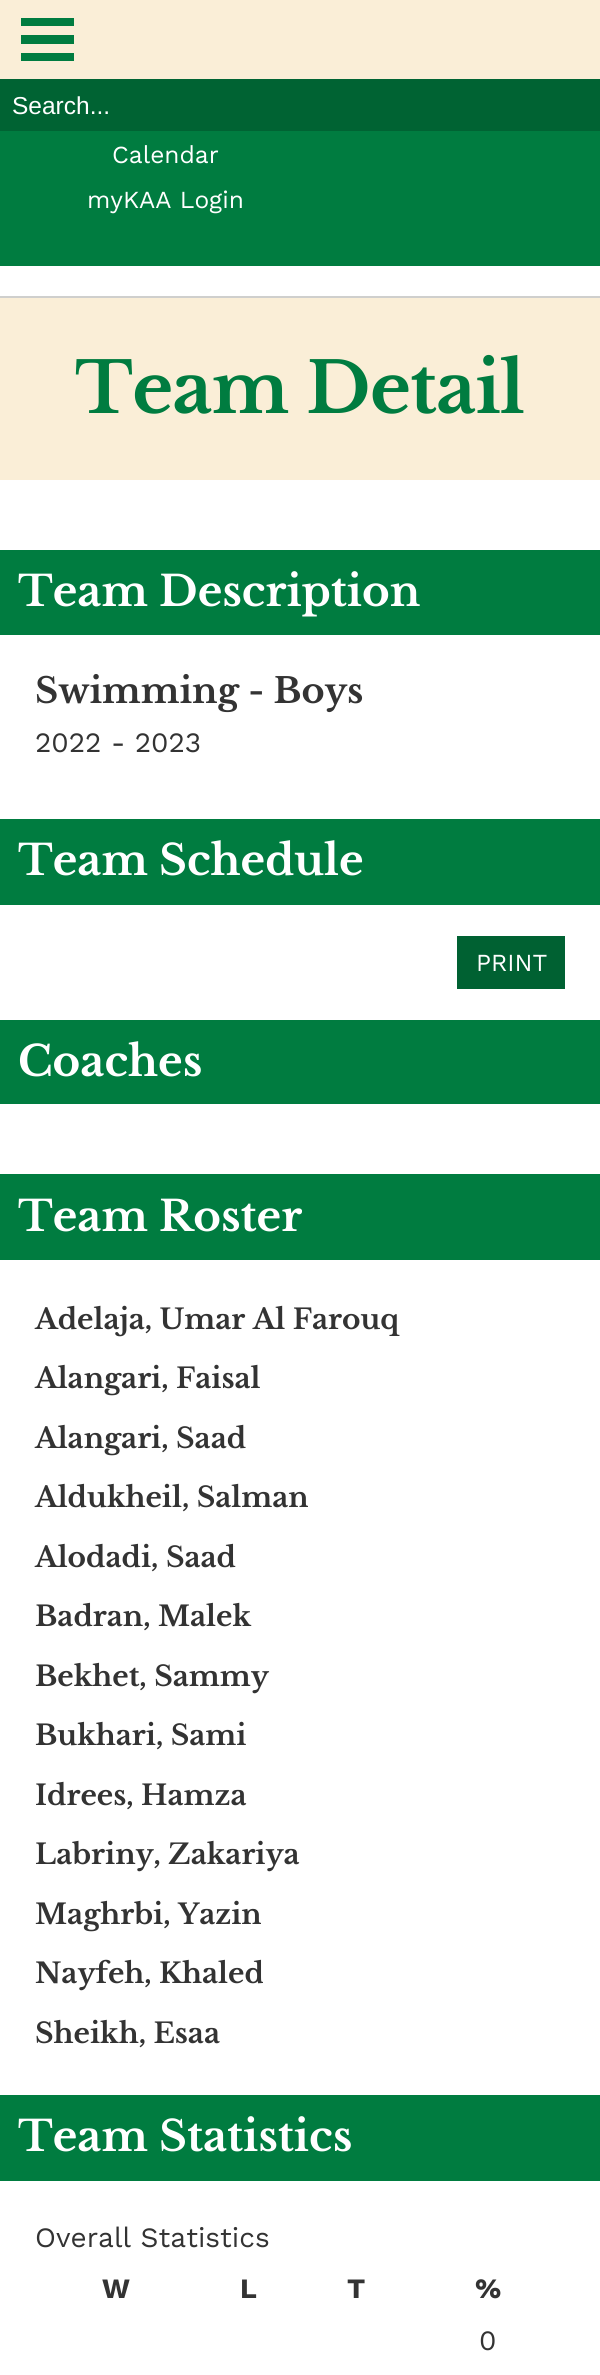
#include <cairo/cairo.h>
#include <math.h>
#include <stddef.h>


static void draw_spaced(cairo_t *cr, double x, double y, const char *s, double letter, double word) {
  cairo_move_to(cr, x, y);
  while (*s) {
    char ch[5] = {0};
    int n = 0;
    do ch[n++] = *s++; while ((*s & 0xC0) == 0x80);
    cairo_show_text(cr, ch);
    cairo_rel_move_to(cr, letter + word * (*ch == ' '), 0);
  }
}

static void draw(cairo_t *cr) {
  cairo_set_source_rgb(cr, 1, 1, 1);
  cairo_paint(cr);
  cairo_set_source_rgb(cr, 250 / 255.0, 238 / 255.0, 215 / 255.0);
  cairo_rectangle(cr, 0, 0, 600, 79);
  cairo_fill(cr);
  cairo_set_source_rgb(cr, 0, 124 / 255.0, 64 / 255.0);
  cairo_rectangle(cr, 21, 35, 53, 9);
  cairo_fill(cr);
  cairo_rectangle(cr, 21, 18, 53, 8);
  cairo_fill(cr);
  cairo_rectangle(cr, 21, 53, 53, 8);
  cairo_fill(cr);
  cairo_set_source_rgb(cr, 207 / 255.0, 207 / 255.0, 205 / 255.0);
  cairo_rectangle(cr, 0, 296, 600, 2);
  cairo_fill(cr);
  cairo_set_source_rgb(cr, 0, 124 / 255.0, 64 / 255.0);
  cairo_rectangle(cr, 0, 131, 600, 135);
  cairo_fill(cr);
  cairo_set_source_rgb(cr, 0, 99 / 255.0, 51 / 255.0);
  cairo_rectangle(cr, 0, 79, 600, 52);
  cairo_fill(cr);
  cairo_set_source_rgb(cr, 250 / 255.0, 238 / 255.0, 215 / 255.0);
  cairo_new_path(cr);
  cairo_move_to(cr, 0, 298);
  cairo_line_to(cr, 0, 480);
  cairo_line_to(cr, 530, 480);
  cairo_line_to(cr, 35, 480);
  cairo_line_to(cr, 35, 298);
  cairo_close_path(cr);
  cairo_fill(cr);
  cairo_new_path(cr);
  cairo_move_to(cr, 70, 480);
  cairo_line_to(cr, 600, 480);
  cairo_line_to(cr, 600, 298);
  cairo_line_to(cr, 565, 298);
  cairo_line_to(cr, 565, 480);
  cairo_close_path(cr);
  cairo_fill(cr);
  cairo_rectangle(cr, 35, 298, 530, 182);
  cairo_fill(cr);
  cairo_set_source_rgb(cr, 0, 124 / 255.0, 64 / 255.0);
  cairo_rectangle(cr, 0, 550, 600, 85);
  cairo_fill(cr);
  cairo_rectangle(cr, 0, 819, 600, 86);
  cairo_fill(cr);
  cairo_set_source_rgb(cr, 0, 97 / 255.0, 50 / 255.0);
  cairo_rectangle(cr, 457, 936, 108, 53);
  cairo_fill(cr);
  cairo_set_source_rgb(cr, 0, 124 / 255.0, 64 / 255.0);
  cairo_rectangle(cr, 0, 1020, 600, 84);
  cairo_fill(cr);
  cairo_rectangle(cr, 0, 1174, 600, 86);
  cairo_fill(cr);
  cairo_rectangle(cr, 0, 2095, 600, 86);
  cairo_fill(cr);
  cairo_select_font_face(cr, "Liberation Sans", CAIRO_FONT_SLANT_NORMAL, CAIRO_FONT_WEIGHT_NORMAL);
  cairo_set_font_size(cr, 24.5);
  cairo_set_source_rgb(cr, 1, 1, 1);
  cairo_move_to(cr, 12, 114);
  cairo_show_text(cr, "Search...");
  cairo_select_font_face(cr, "Work Sans", CAIRO_FONT_SLANT_NORMAL, CAIRO_FONT_WEIGHT_NORMAL);
  cairo_move_to(cr, 112, 163);
  cairo_show_text(cr, "Calendar");
  cairo_move_to(cr, 87, 208);
  cairo_show_text(cr, "myKAA Login");
  cairo_select_font_face(cr, "Libre Baskerville", CAIRO_FONT_SLANT_NORMAL, CAIRO_FONT_WEIGHT_BOLD);
  cairo_set_font_size(cr, 70);
  cairo_set_source_rgb(cr, 0, 124 / 255.0, 64 / 255.0);
  draw_spaced(cr, 75, 413, "Team Detail", -0.75, 0);
  cairo_set_font_size(cr, 42);
  cairo_set_source_rgb(cr, 1, 1, 1);
  cairo_move_to(cr, 18, 606);
  cairo_show_text(cr, "Team Description");
  cairo_set_font_size(cr, 35);
  cairo_set_source_rgb(cr, 51 / 255.0, 51 / 255.0, 51 / 255.0);
  cairo_move_to(cr, 35, 703);
  cairo_show_text(cr, "Swimming - Boys");
  cairo_select_font_face(cr, "Work Sans", CAIRO_FONT_SLANT_NORMAL, CAIRO_FONT_WEIGHT_NORMAL);
  cairo_set_font_size(cr, 28);
  cairo_move_to(cr, 35, 752);
  cairo_show_text(cr, "2022 - 2023");
  cairo_select_font_face(cr, "Libre Baskerville", CAIRO_FONT_SLANT_NORMAL, CAIRO_FONT_WEIGHT_BOLD);
  cairo_set_font_size(cr, 42);
  cairo_set_source_rgb(cr, 1, 1, 1);
  cairo_move_to(cr, 18, 875);
  cairo_show_text(cr, "Team Schedule");
  cairo_select_font_face(cr, "Work Sans", CAIRO_FONT_SLANT_NORMAL, CAIRO_FONT_WEIGHT_NORMAL);
  cairo_set_font_size(cr, 24.5);
  cairo_move_to(cr, 476, 971);
  cairo_show_text(cr, "PRINT");
  cairo_select_font_face(cr, "Libre Baskerville", CAIRO_FONT_SLANT_NORMAL, CAIRO_FONT_WEIGHT_BOLD);
  cairo_set_font_size(cr, 42);
  cairo_move_to(cr, 18, 1076);
  cairo_show_text(cr, "Coaches");
  cairo_move_to(cr, 18, 1231);
  cairo_show_text(cr, "Team Roster");
  cairo_set_font_size(cr, 28);
  cairo_set_source_rgb(cr, 51 / 255.0, 51 / 255.0, 51 / 255.0);
  cairo_move_to(cr, 35, 1329);
  cairo_show_text(cr, "Adelaja, Umar Al Farouq");
  cairo_move_to(cr, 35, 1388);
  cairo_show_text(cr, "Alangari, Faisal");
  cairo_move_to(cr, 35, 1448);
  cairo_show_text(cr, "Alangari, Saad");
  cairo_move_to(cr, 35, 1507);
  cairo_show_text(cr, "Aldukheil, Salman");
  cairo_move_to(cr, 35, 1567);
  cairo_show_text(cr, "Alodadi, Saad");
  cairo_move_to(cr, 35, 1626);
  cairo_show_text(cr, "Badran, Malek");
  cairo_move_to(cr, 35, 1686);
  cairo_show_text(cr, "Bekhet, Sammy");
  cairo_move_to(cr, 35, 1745);
  cairo_show_text(cr, "Bukhari, Sami");
  cairo_move_to(cr, 35, 1805);
  cairo_show_text(cr, "Idrees, Hamza");
  cairo_move_to(cr, 35, 1864);
  cairo_show_text(cr, "Labriny, Zakariya");
  cairo_move_to(cr, 35, 1924);
  cairo_show_text(cr, "Maghrbi, Yazin");
  cairo_move_to(cr, 35, 1983);
  cairo_show_text(cr, "Nayfeh, Khaled");
  cairo_move_to(cr, 35, 2043);
  cairo_show_text(cr, "Sheikh, Esaa");
  cairo_set_font_size(cr, 42);
  cairo_set_source_rgb(cr, 1, 1, 1);
  cairo_move_to(cr, 18, 2151);
  cairo_show_text(cr, "Team Statistics");
  cairo_select_font_face(cr, "Work Sans", CAIRO_FONT_SLANT_NORMAL, CAIRO_FONT_WEIGHT_NORMAL);
  cairo_set_font_size(cr, 28);
  cairo_set_source_rgb(cr, 51 / 255.0, 51 / 255.0, 51 / 255.0);
  cairo_move_to(cr, 35, 2247);
  cairo_show_text(cr, "Overall Statistics");
  cairo_select_font_face(cr, "Work Sans", CAIRO_FONT_SLANT_NORMAL, CAIRO_FONT_WEIGHT_BOLD);
  cairo_move_to(cr, 102, 2298);
  cairo_show_text(cr, "W");
  cairo_move_to(cr, 240, 2298);
  cairo_show_text(cr, "L");
  cairo_move_to(cr, 347, 2298);
  cairo_show_text(cr, "T");
  cairo_move_to(cr, 475, 2298);
  cairo_show_text(cr, "%");
  cairo_select_font_face(cr, "Work Sans", CAIRO_FONT_SLANT_NORMAL, CAIRO_FONT_WEIGHT_NORMAL);
  cairo_move_to(cr, 479, 2350);
  cairo_show_text(cr, "0");
}

int main(void) {
  cairo_surface_t *surface = cairo_image_surface_create(CAIRO_FORMAT_RGB24, 600, 2375);
  cairo_t *cr = cairo_create(surface);
  cairo_font_options_t *options = cairo_font_options_create();
  cairo_font_options_set_hint_metrics(options, CAIRO_HINT_METRICS_OFF);
  cairo_font_options_set_hint_style(options, CAIRO_HINT_STYLE_NONE);
  cairo_set_font_options(cr, options);
  cairo_set_miter_limit(cr, 4);
  draw(cr);
  cairo_surface_write_to_png(surface, "out.png");
  cairo_font_options_destroy(options);
  cairo_destroy(cr);
  cairo_surface_destroy(surface);
  return 0;
}
